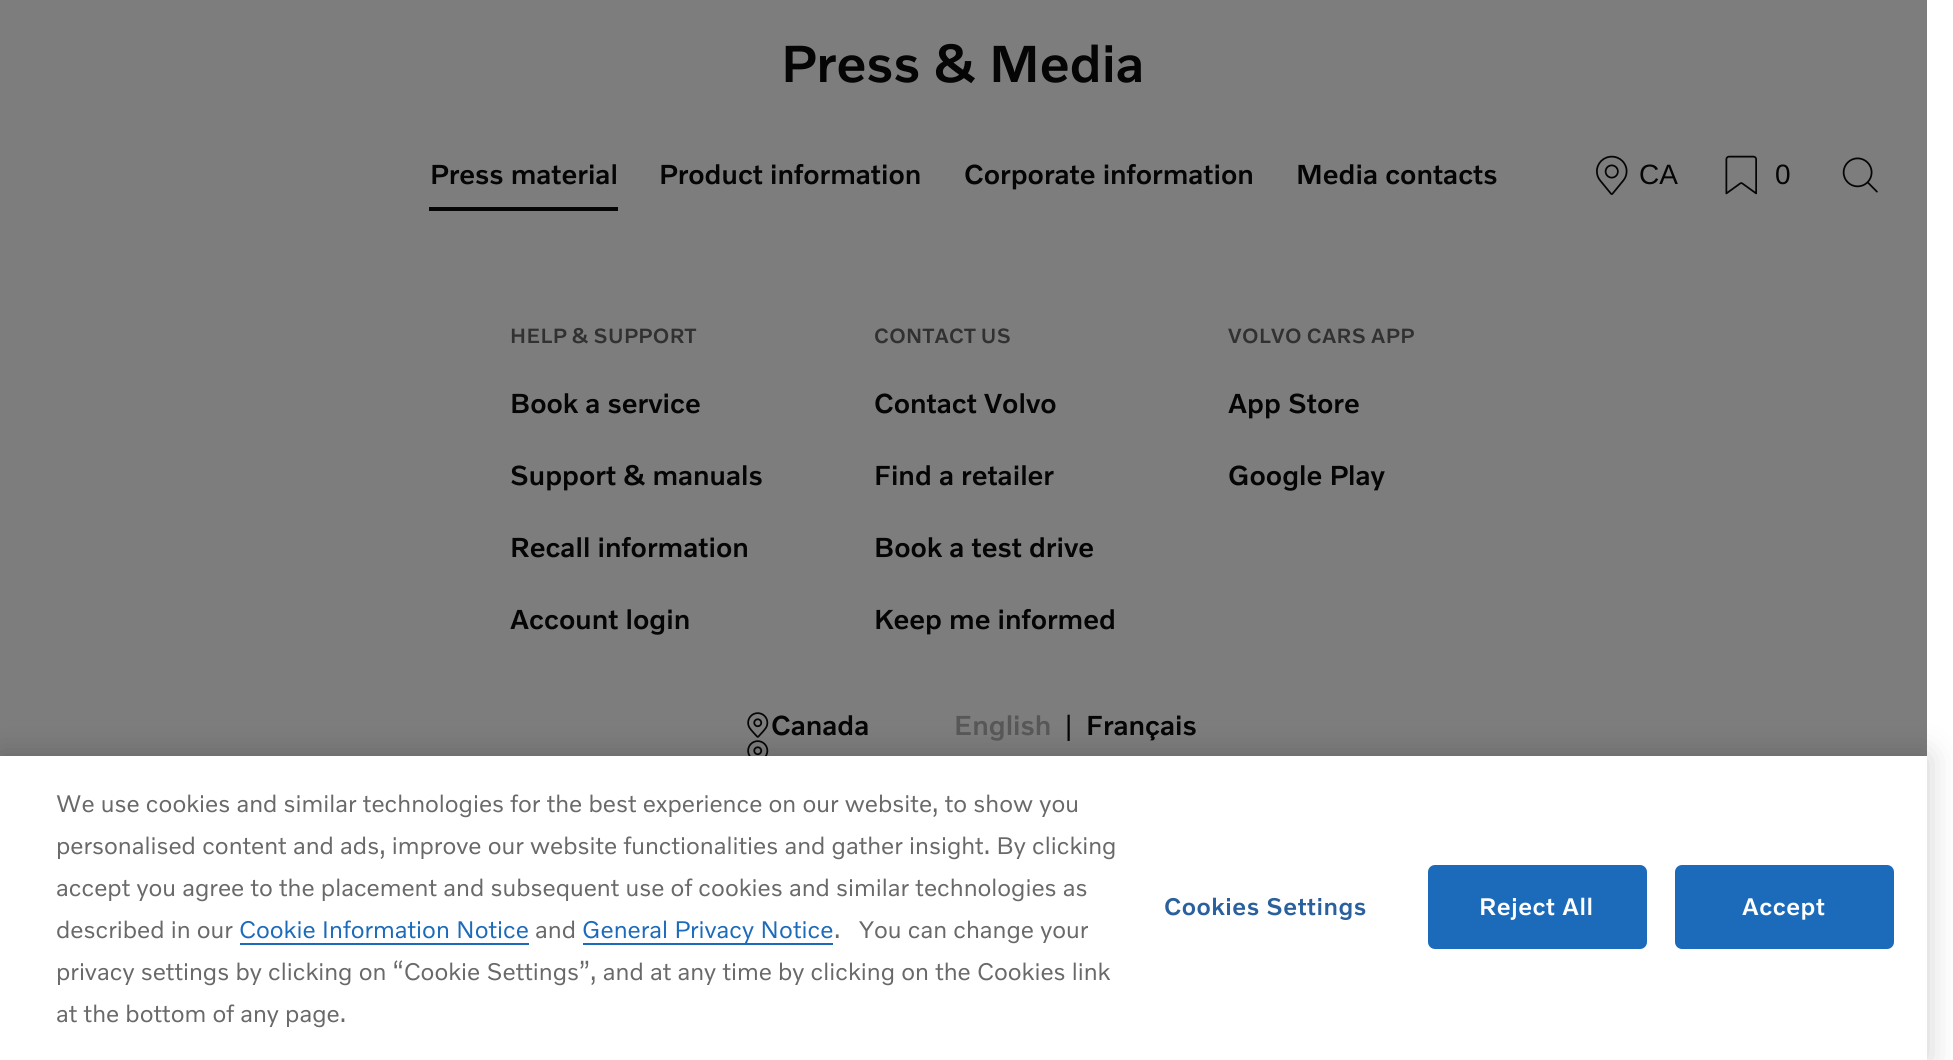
#include <cairo/cairo.h>
#include <math.h>
#include <stddef.h>


static void draw_spaced(cairo_t *cr, double x, double y, const char *s, double letter, double word) {
  cairo_move_to(cr, x, y);
  while (*s) {
    char ch[5] = {0};
    int n = 0;
    do ch[n++] = *s++; while ((*s & 0xC0) == 0x80);
    cairo_show_text(cr, ch);
    cairo_rel_move_to(cr, letter + word * (*ch == ' '), 0);
  }
}

static void rounded_rect(cairo_t *cr, double x, double y, double w, double h, double r) {
  cairo_new_sub_path(cr);
  cairo_arc(cr, x + w - r, y + h - r, r, 0, M_PI / 2);
  cairo_arc(cr, x + r, y + h - r, r, M_PI / 2, M_PI);
  cairo_arc(cr, x + r, y + r, r, M_PI, 1.5 * M_PI);
  cairo_arc(cr, x + w - r, y + r, r, 1.5 * M_PI, 2 * M_PI);
  cairo_close_path(cr);
}

static void draw_shadow(cairo_t *cr, double x, double y, double w, double h, double r, double blur, double alpha) {
  cairo_push_group_with_content(cr, CAIRO_CONTENT_ALPHA);
  cairo_set_operator(cr, CAIRO_OPERATOR_SOURCE);
  for (int i = 15; i >= -15 && fmin(w, h) + blur * i / 3 > 0; i -= 2) {
    double e = blur * i / 6;
    cairo_set_source_rgba(cr, 0, 0, 0, alpha * erfc((i - 1) / 8.5) / 2);
    rounded_rect(cr, x - e, y - e, w + 2 * e, h + 2 * e, fmax(0, fmin(r + e + blur * .6, fmin(w, h) / 2 + e)));
    cairo_fill(cr);
  }
  cairo_pattern_t *soft = cairo_pop_group(cr);
  cairo_mask(cr, soft);
  cairo_pattern_destroy(soft);
}

static void draw_image(cairo_t *cr, const char *path, double x, double y, double w, double h) {
  cairo_surface_t *image = cairo_image_surface_create_from_png(path);
  cairo_save(cr);
  cairo_set_source_surface(cr, image, x, y);
  cairo_rectangle(cr, x, y, w, h);
  cairo_fill(cr);
  cairo_restore(cr);
  cairo_surface_destroy(image);
}

static void draw(cairo_t *cr) {
  cairo_set_source_rgb(cr, 1, 1, 1);
  cairo_paint(cr);
  cairo_set_source_rgb(cr, 125 / 255.0, 125 / 255.0, 125 / 255.0);
  cairo_rectangle(cr, 0, 0, 1927, 252);
  cairo_fill(cr);
  cairo_set_source_rgb(cr, 5 / 255.0, 5 / 255.0, 5 / 255.0);
  cairo_rectangle(cr, 429, 207, 189, 4);
  cairo_fill(cr);
  draw_image(cr, "images/1.png", 1596, 155, 32, 40);
  draw_image(cr, "images/2.png", 1725, 155, 32, 40);
  draw_image(cr, "images/3.png", 1842, 157, 36, 36);
  cairo_set_source_rgb(cr, 125 / 255.0, 125 / 255.0, 125 / 255.0);
  cairo_rectangle(cr, 0, 252, 1927, 504);
  cairo_fill(cr);
  draw_image(cr, "images/4.png", 747, 712, 22, 44);
  cairo_set_source_rgb(cr, 0, 0, 0);
  draw_shadow(cr, 0, 756, 1927, 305, 0, 16, 0.2);
  cairo_set_source_rgb(cr, 1, 1, 1);
  cairo_rectangle(cr, 0, 756, 1927, 304);
  cairo_fill(cr);
  cairo_set_source_rgb(cr, 28 / 255.0, 107 / 255.0, 186 / 255.0);
  cairo_rectangle(cr, 240, 943, 289, 2);
  cairo_fill(cr);
  cairo_rectangle(cr, 583, 943, 250, 2);
  cairo_fill(cr);
  rounded_rect(cr, 1429, 866, 217, 82, 6);
  cairo_fill_preserve(cr);
  cairo_stroke(cr);
  rounded_rect(cr, 1676, 866, 217, 82, 6);
  cairo_fill_preserve(cr);
  cairo_stroke(cr);
  cairo_select_font_face(cr, "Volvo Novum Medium", CAIRO_FONT_SLANT_NORMAL, CAIRO_FONT_WEIGHT_NORMAL);
  cairo_set_font_size(cr, 53);
  cairo_set_source_rgb(cr, 5 / 255.0, 5 / 255.0, 5 / 255.0);
  cairo_move_to(cr, 781, 82);
  cairo_show_text(cr, "Press & Media");
  cairo_set_font_size(cr, 28);
  cairo_move_to(cr, 430, 184);
  cairo_show_text(cr, "Press material");
  cairo_move_to(cr, 659, 184);
  cairo_show_text(cr, "Product information");
  cairo_move_to(cr, 964, 184);
  cairo_show_text(cr, "Corporate information");
  cairo_move_to(cr, 1296, 184);
  cairo_show_text(cr, "Media contacts");
  cairo_select_font_face(cr, "Liberation Sans", CAIRO_FONT_SLANT_NORMAL, CAIRO_FONT_WEIGHT_NORMAL);
  cairo_move_to(cr, 1639, 184);
  cairo_show_text(cr, "CA");
  cairo_move_to(cr, 1775, 184);
  cairo_show_text(cr, "0");
  cairo_select_font_face(cr, "Volvo Novum Medium", CAIRO_FONT_SLANT_NORMAL, CAIRO_FONT_WEIGHT_NORMAL);
  cairo_set_font_size(cr, 21);
  cairo_set_source_rgb(cr, 49 / 255.0, 49 / 255.0, 49 / 255.0);
  draw_spaced(cr, 510, 343, "HELP & SUPPORT", 0.4, -1);
  cairo_set_font_size(cr, 28);
  cairo_set_source_rgb(cr, 5 / 255.0, 5 / 255.0, 5 / 255.0);
  cairo_move_to(cr, 510, 413);
  cairo_show_text(cr, "Book a service");
  cairo_move_to(cr, 510, 485);
  cairo_show_text(cr, "Support & manuals");
  cairo_move_to(cr, 510, 557);
  cairo_show_text(cr, "Recall information");
  cairo_move_to(cr, 510, 629);
  cairo_show_text(cr, "Account login");
  cairo_set_font_size(cr, 21);
  cairo_set_source_rgb(cr, 49 / 255.0, 49 / 255.0, 49 / 255.0);
  draw_spaced(cr, 874, 343, "CONTACT US", 0.4, -1);
  cairo_set_font_size(cr, 28);
  cairo_set_source_rgb(cr, 5 / 255.0, 5 / 255.0, 5 / 255.0);
  cairo_move_to(cr, 874, 413);
  cairo_show_text(cr, "Contact Volvo");
  cairo_move_to(cr, 874, 485);
  cairo_show_text(cr, "Find a retailer");
  cairo_move_to(cr, 874, 557);
  cairo_show_text(cr, "Book a test drive");
  cairo_move_to(cr, 874, 629);
  cairo_show_text(cr, "Keep me informed");
  cairo_set_font_size(cr, 21);
  cairo_set_source_rgb(cr, 49 / 255.0, 49 / 255.0, 49 / 255.0);
  draw_spaced(cr, 1228, 343, "VOLVO CARS APP", 0.4, -1);
  cairo_set_font_size(cr, 28);
  cairo_set_source_rgb(cr, 5 / 255.0, 5 / 255.0, 5 / 255.0);
  cairo_move_to(cr, 1228, 413);
  cairo_show_text(cr, "App Store");
  cairo_move_to(cr, 1228, 485);
  cairo_show_text(cr, "Google Play");
  cairo_move_to(cr, 771, 735);
  cairo_show_text(cr, "Canada");
  cairo_set_source_rgb(cr, 87 / 255.0, 87 / 255.0, 87 / 255.0);
  cairo_move_to(cr, 954, 735);
  cairo_show_text(cr, "English");
  cairo_select_font_face(cr, "Liberation Sans", CAIRO_FONT_SLANT_NORMAL, CAIRO_FONT_WEIGHT_NORMAL);
  cairo_set_source_rgb(cr, 5 / 255.0, 5 / 255.0, 5 / 255.0);
  cairo_move_to(cr, 1065, 735);
  cairo_show_text(cr, "|");
  cairo_select_font_face(cr, "Volvo Novum Medium", CAIRO_FONT_SLANT_NORMAL, CAIRO_FONT_WEIGHT_NORMAL);
  cairo_move_to(cr, 1086, 735);
  cairo_show_text(cr, "Français");
  cairo_select_font_face(cr, "Volvo Novum", CAIRO_FONT_SLANT_NORMAL, CAIRO_FONT_WEIGHT_NORMAL);
  cairo_set_font_size(cr, 24.5);
  cairo_set_source_rgb(cr, 105 / 255.0, 105 / 255.0, 105 / 255.0);
  cairo_move_to(cr, 56, 812);
  cairo_show_text(cr, "We use cookies and similar technologies for the best experience on our website, to show you");
  cairo_move_to(cr, 56, 854);
  cairo_show_text(cr, "personalised content and ads, improve our website functionalities and gather insight. By clicking");
  cairo_move_to(cr, 56, 896);
  cairo_show_text(cr, "accept you agree to the placement and subsequent use of cookies and similar technologies as");
  cairo_move_to(cr, 56, 938);
  cairo_show_text(cr, "described in our");
  cairo_set_source_rgb(cr, 28 / 255.0, 107 / 255.0, 186 / 255.0);
  cairo_move_to(cr, 239, 938);
  cairo_show_text(cr, "Cookie Information Notice");
  cairo_set_source_rgb(cr, 105 / 255.0, 105 / 255.0, 105 / 255.0);
  cairo_move_to(cr, 535, 938);
  cairo_show_text(cr, "and");
  cairo_set_source_rgb(cr, 28 / 255.0, 107 / 255.0, 186 / 255.0);
  cairo_move_to(cr, 582, 938);
  cairo_show_text(cr, "General Privacy Notice");
  cairo_set_source_rgb(cr, 105 / 255.0, 105 / 255.0, 105 / 255.0);
  cairo_move_to(cr, 834, 938);
  cairo_show_text(cr, ".");
  cairo_move_to(cr, 859, 938);
  cairo_show_text(cr, "You can change your");
  cairo_move_to(cr, 56, 980);
  cairo_show_text(cr, "privacy settings by clicking on “Cookie Settings”, and at any time by clicking on the Cookies link");
  cairo_move_to(cr, 56, 1022);
  cairo_show_text(cr, "at the bottom of any page.");
  cairo_select_font_face(cr, "Volvo Novum Medium", CAIRO_FONT_SLANT_NORMAL, CAIRO_FONT_WEIGHT_NORMAL);
  cairo_set_source_rgb(cr, 42 / 255.0, 96 / 255.0, 157 / 255.0);
  draw_spaced(cr, 1164, 915, "Cookies Settings", 0.5, 0);
  cairo_set_source_rgb(cr, 1, 1, 1);
  draw_spaced(cr, 1479, 915, "Reject All", 0.5, 0);
  draw_spaced(cr, 1742, 915, "Accept", 0.5, 0);
}

int main(void) {
  cairo_surface_t *surface = cairo_image_surface_create(CAIRO_FORMAT_RGB24, 1953, 1060);
  cairo_t *cr = cairo_create(surface);
  cairo_font_options_t *options = cairo_font_options_create();
  cairo_font_options_set_hint_metrics(options, CAIRO_HINT_METRICS_OFF);
  cairo_font_options_set_hint_style(options, CAIRO_HINT_STYLE_NONE);
  cairo_set_font_options(cr, options);
  cairo_set_miter_limit(cr, 4);
  draw(cr);
  cairo_surface_write_to_png(surface, "out.png");
  cairo_font_options_destroy(options);
  cairo_destroy(cr);
  cairo_surface_destroy(surface);
  return 0;
}
